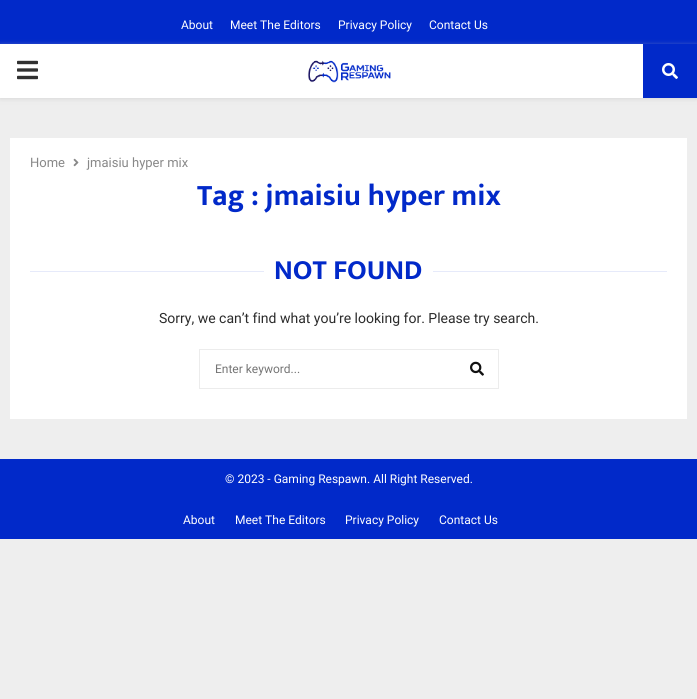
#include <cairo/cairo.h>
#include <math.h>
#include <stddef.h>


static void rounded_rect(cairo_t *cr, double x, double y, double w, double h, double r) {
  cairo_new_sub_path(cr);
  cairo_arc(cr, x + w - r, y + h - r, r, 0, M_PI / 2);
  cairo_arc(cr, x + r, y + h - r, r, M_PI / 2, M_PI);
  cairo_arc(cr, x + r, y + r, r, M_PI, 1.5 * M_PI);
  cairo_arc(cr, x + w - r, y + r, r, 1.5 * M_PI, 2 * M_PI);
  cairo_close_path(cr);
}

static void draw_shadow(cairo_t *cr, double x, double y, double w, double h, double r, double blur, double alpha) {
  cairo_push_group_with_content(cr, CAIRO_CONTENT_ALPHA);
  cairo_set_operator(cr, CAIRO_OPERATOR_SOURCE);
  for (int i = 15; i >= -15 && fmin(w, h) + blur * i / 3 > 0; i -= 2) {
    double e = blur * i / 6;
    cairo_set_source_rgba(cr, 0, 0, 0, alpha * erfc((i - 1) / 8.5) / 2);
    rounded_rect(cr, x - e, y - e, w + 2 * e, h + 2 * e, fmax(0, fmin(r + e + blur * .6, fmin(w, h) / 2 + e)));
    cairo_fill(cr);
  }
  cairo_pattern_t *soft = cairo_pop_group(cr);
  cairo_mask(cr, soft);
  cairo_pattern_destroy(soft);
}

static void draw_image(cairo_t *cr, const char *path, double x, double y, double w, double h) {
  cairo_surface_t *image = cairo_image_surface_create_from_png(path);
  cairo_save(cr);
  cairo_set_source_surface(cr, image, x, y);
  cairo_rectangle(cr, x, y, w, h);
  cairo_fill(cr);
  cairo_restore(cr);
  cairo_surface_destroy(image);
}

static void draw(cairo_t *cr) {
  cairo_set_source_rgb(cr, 238 / 255.0, 238 / 255.0, 238 / 255.0);
  cairo_paint(cr);
  cairo_set_source_rgb(cr, 1 / 255.0, 41 / 255.0, 201 / 255.0);
  cairo_rectangle(cr, 0, 0, 697, 44);
  cairo_fill(cr);
  cairo_set_source_rgb(cr, 190 / 255.0, 190 / 255.0, 190 / 255.0);
  draw_shadow(cr, 0, 45, 697, 54, 0, 2.5, 0.46);
  cairo_set_source_rgb(cr, 1, 1, 1);
  cairo_rectangle(cr, 0, 44, 643, 54);
  cairo_fill(cr);
  draw_image(cr, "images/1.png", 17, 60, 21, 20);
  draw_image(cr, "images/2.png", 307, 60, 84, 23);
  cairo_set_source_rgb(cr, 1 / 255.0, 41 / 255.0, 201 / 255.0);
  cairo_rectangle(cr, 643, 44, 54, 54);
  cairo_fill(cr);
  draw_image(cr, "images/3.png", 662, 63, 16, 16);
  cairo_set_source_rgb(cr, 1, 1, 1);
  cairo_rectangle(cr, 10, 138, 677, 281);
  cairo_fill(cr);
  draw_image(cr, "images/4.png", 73, 158, 6, 9);
  cairo_set_source_rgb(cr, 230 / 255.0, 234 / 255.0, 250 / 255.0);
  cairo_rectangle(cr, 30, 271, 234, 1);
  cairo_fill(cr);
  cairo_rectangle(cr, 433, 271, 234, 1);
  cairo_fill(cr);
  cairo_rectangle(cr, 199.5, 349.5, 299, 39);
  cairo_set_source_rgb(cr, 236 / 255.0, 236 / 255.0, 236 / 255.0);
  cairo_set_line_width(cr, 1);
  cairo_stroke(cr);
  draw_image(cr, "images/5.png", 470, 361, 14, 15);
  cairo_set_source_rgb(cr, 1 / 255.0, 41 / 255.0, 201 / 255.0);
  cairo_rectangle(cr, 0, 459, 697, 80);
  cairo_fill(cr);
  cairo_select_font_face(cr, "Roboto", CAIRO_FONT_SLANT_NORMAL, CAIRO_FONT_WEIGHT_NORMAL);
  cairo_set_font_size(cr, 12);
  cairo_set_source_rgb(cr, 1, 1, 1);
  cairo_move_to(cr, 181, 29);
  cairo_show_text(cr, "About");
  cairo_move_to(cr, 230, 29);
  cairo_show_text(cr, "Meet The Editors");
  cairo_move_to(cr, 338, 29);
  cairo_show_text(cr, "Privacy Policy");
  cairo_move_to(cr, 429, 29);
  cairo_show_text(cr, "Contact Us");
  cairo_set_font_size(cr, 13);
  cairo_set_source_rgb(cr, 136 / 255.0, 136 / 255.0, 136 / 255.0);
  cairo_move_to(cr, 30, 167);
  cairo_show_text(cr, "Home");
  cairo_move_to(cr, 87, 167);
  cairo_show_text(cr, "jmaisiu hyper mix");
  cairo_select_font_face(cr, "Mukta Vaani", CAIRO_FONT_SLANT_NORMAL, CAIRO_FONT_WEIGHT_BOLD);
  cairo_set_font_size(cr, 30);
  cairo_set_source_rgb(cr, 1 / 255.0, 41 / 255.0, 201 / 255.0);
  cairo_move_to(cr, 197, 205);
  cairo_show_text(cr, "Tag : jmaisiu hyper mix");
  cairo_set_font_size(cr, 28);
  cairo_move_to(cr, 274, 279);
  cairo_show_text(cr, "NOT FOUND");
  cairo_select_font_face(cr, "Roboto", CAIRO_FONT_SLANT_NORMAL, CAIRO_FONT_WEIGHT_NORMAL);
  cairo_set_font_size(cr, 14);
  cairo_set_source_rgb(cr, 43 / 255.0, 43 / 255.0, 43 / 255.0);
  cairo_move_to(cr, 159, 323);
  cairo_show_text(cr, "Sorry, we can’t find what you’re looking for. Please try search.");
  cairo_set_font_size(cr, 12);
  cairo_set_source_rgb(cr, 117 / 255.0, 117 / 255.0, 117 / 255.0);
  cairo_move_to(cr, 215, 373);
  cairo_show_text(cr, "Enter keyword...");
  cairo_set_source_rgb(cr, 1, 1, 1);
  cairo_move_to(cr, 225, 483);
  cairo_show_text(cr, "© 2023 - Gaming Respawn. All Right Reserved.");
  cairo_move_to(cr, 183, 524);
  cairo_show_text(cr, "About");
  cairo_move_to(cr, 235, 524);
  cairo_show_text(cr, "Meet The Editors");
  cairo_move_to(cr, 345, 524);
  cairo_show_text(cr, "Privacy Policy");
  cairo_move_to(cr, 439, 524);
  cairo_show_text(cr, "Contact Us");
}

int main(void) {
  cairo_surface_t *surface = cairo_image_surface_create(CAIRO_FORMAT_RGB24, 697, 699);
  cairo_t *cr = cairo_create(surface);
  cairo_font_options_t *options = cairo_font_options_create();
  cairo_font_options_set_hint_metrics(options, CAIRO_HINT_METRICS_OFF);
  cairo_font_options_set_hint_style(options, CAIRO_HINT_STYLE_NONE);
  cairo_set_font_options(cr, options);
  cairo_set_miter_limit(cr, 4);
  draw(cr);
  cairo_surface_write_to_png(surface, "out.png");
  cairo_font_options_destroy(options);
  cairo_destroy(cr);
  cairo_surface_destroy(surface);
  return 0;
}
